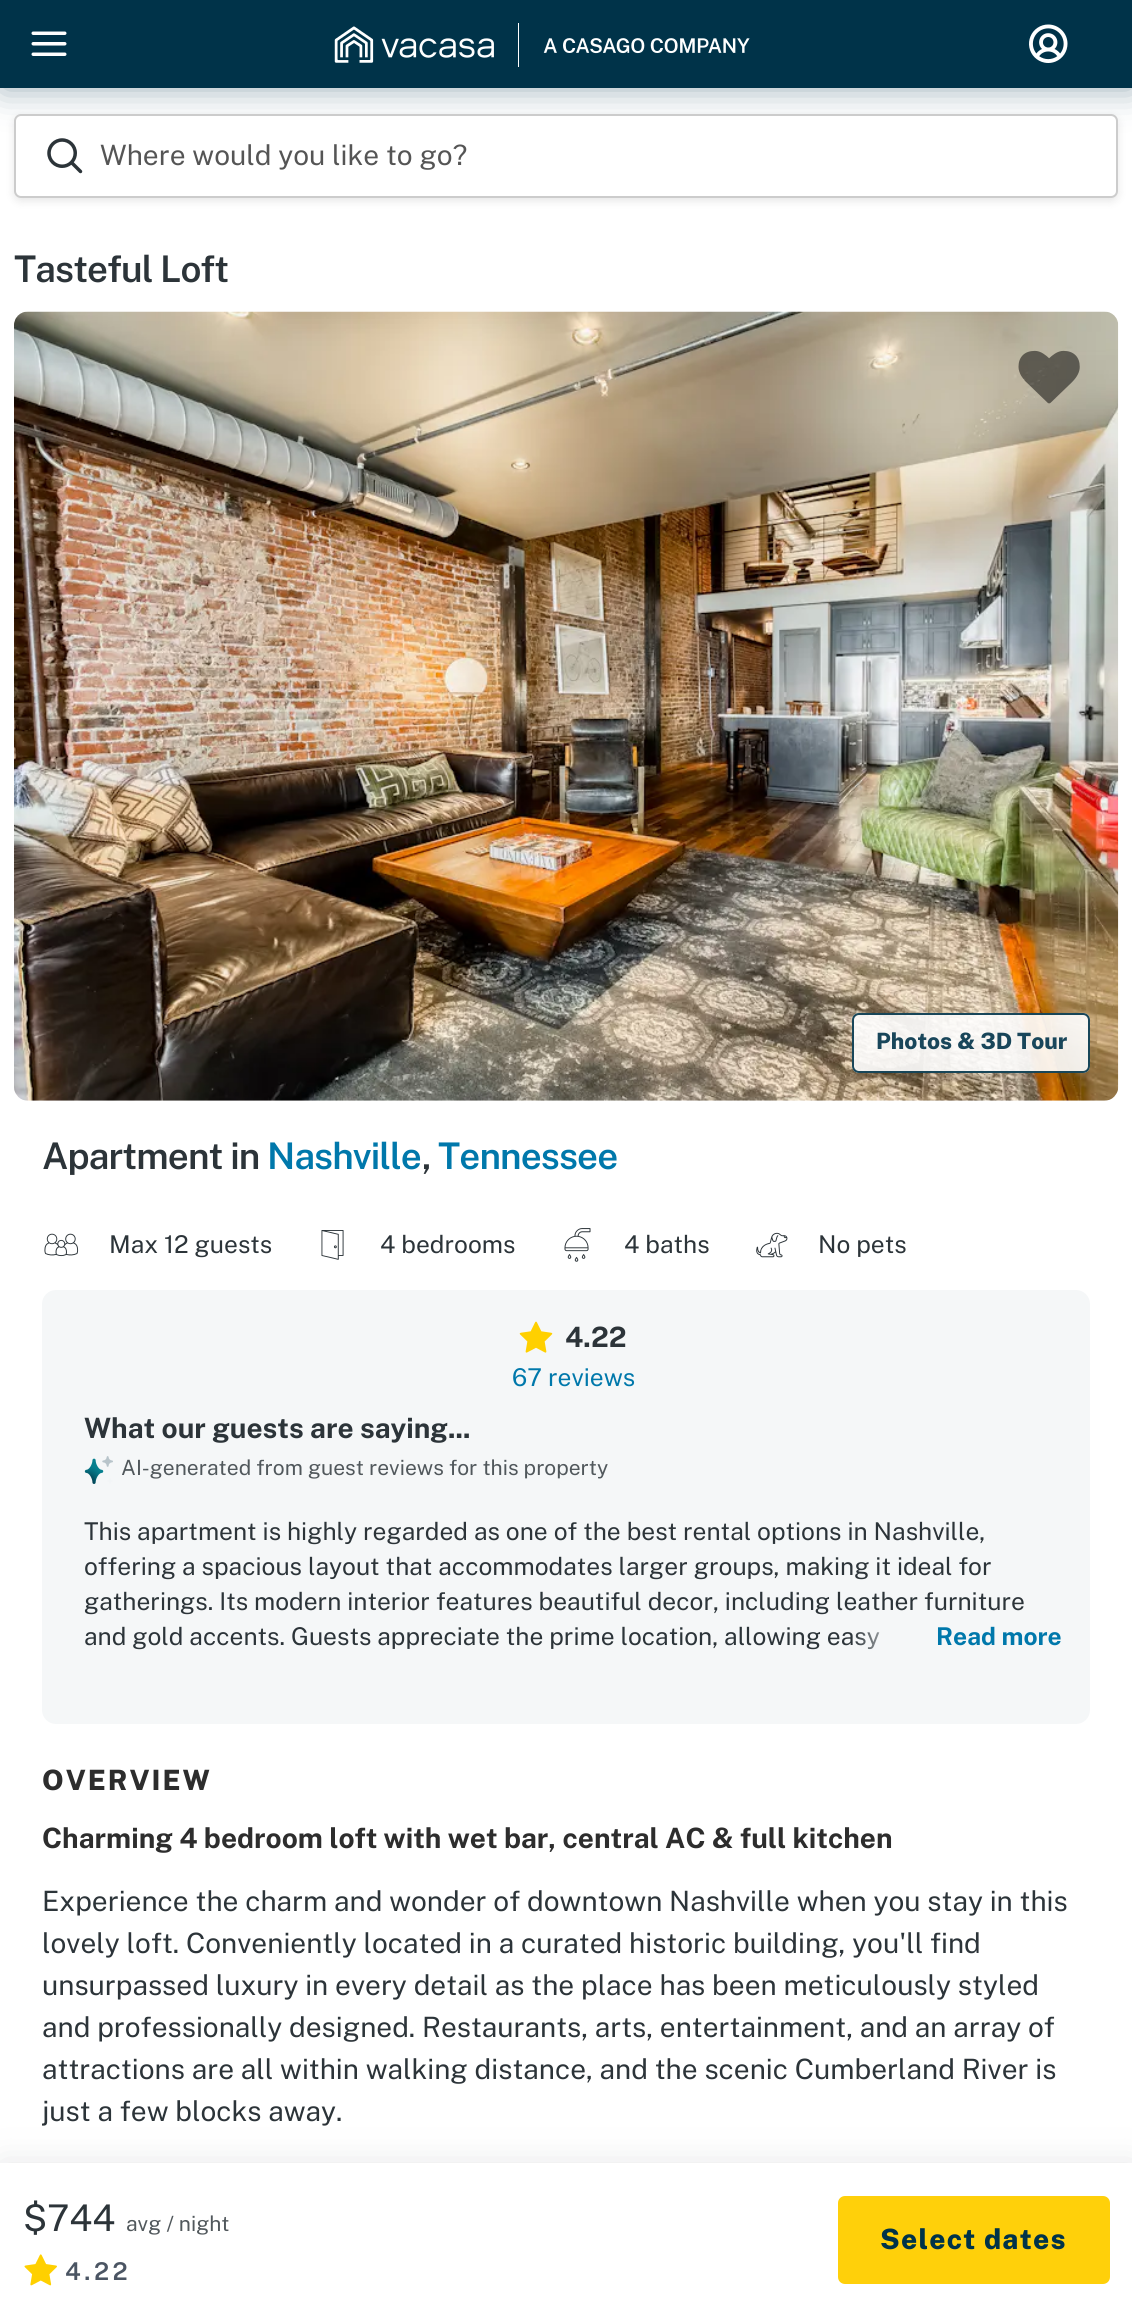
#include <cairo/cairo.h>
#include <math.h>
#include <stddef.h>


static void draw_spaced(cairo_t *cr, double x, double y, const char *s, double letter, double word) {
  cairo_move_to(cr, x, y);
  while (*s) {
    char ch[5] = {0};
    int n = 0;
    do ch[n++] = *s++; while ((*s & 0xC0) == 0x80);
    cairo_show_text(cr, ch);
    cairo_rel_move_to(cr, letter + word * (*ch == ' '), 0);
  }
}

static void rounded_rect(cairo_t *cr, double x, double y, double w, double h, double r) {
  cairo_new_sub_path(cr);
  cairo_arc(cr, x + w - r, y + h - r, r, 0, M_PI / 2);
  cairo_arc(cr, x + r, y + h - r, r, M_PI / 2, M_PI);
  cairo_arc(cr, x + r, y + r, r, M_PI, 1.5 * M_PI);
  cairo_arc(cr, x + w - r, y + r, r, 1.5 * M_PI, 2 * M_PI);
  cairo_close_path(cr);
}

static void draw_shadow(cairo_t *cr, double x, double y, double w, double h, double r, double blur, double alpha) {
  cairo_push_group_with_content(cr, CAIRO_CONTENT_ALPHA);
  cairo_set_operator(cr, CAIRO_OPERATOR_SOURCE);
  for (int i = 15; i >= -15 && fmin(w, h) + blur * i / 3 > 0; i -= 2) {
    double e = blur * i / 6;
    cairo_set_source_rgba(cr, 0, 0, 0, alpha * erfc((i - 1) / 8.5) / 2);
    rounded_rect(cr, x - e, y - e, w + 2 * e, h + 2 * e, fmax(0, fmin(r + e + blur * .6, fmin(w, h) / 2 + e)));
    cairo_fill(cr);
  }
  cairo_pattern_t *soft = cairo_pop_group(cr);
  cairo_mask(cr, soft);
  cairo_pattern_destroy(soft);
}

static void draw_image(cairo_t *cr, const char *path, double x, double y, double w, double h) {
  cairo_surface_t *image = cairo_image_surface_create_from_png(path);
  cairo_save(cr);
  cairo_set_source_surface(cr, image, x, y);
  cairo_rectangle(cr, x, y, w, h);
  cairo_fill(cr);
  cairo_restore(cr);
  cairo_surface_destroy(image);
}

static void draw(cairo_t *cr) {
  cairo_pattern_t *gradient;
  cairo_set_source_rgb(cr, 1, 1, 1);
  cairo_paint(cr);
  cairo_set_source_rgb(cr, 0, 51 / 255.0, 73 / 255.0);
  draw_shadow(cr, 2, 2, 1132, 87, 0, 17.5, 0.4);
  cairo_set_source_rgb(cr, 0, 51 / 255.0, 73 / 255.0);
  cairo_rectangle(cr, 0, 0, 1132, 88);
  cairo_fill(cr);
  draw_image(cr, "images/1.png", 31, 31, 36, 25);
  draw_image(cr, "images/2.png", 334, 23, 416, 44);
  draw_image(cr, "images/3.png", 1029, 24, 39, 39);
  cairo_set_source_rgb(cr, 0, 0, 0);
  draw_shadow(cr, 14, 117, 1104, 84, 7, 4.5, 0.1);
  cairo_set_source_rgb(cr, 1, 1, 1);
  rounded_rect(cr, 15, 115, 1102, 82, 6);
  cairo_fill_preserve(cr);
  cairo_set_source_rgb(cr, 204 / 255.0, 204 / 255.0, 204 / 255.0);
  cairo_stroke(cr);
  draw_image(cr, "images/4.png", 47, 138, 36, 36);
  draw_image(cr, "images/5.png", 14, 311, 1105, 790);
  draw_image(cr, "images/6.png", 1018, 350, 62, 54);
  cairo_set_source_rgba(cr, 1, 1, 1, 0.9);
  rounded_rect(cr, 852, 1013, 238, 60, 7);
  cairo_fill(cr);
  rounded_rect(cr, 853, 1014, 236, 58, 6);
  cairo_set_source_rgba(cr, 0, 51 / 255.0, 73 / 255.0, 0.9);
  cairo_stroke(cr);
  draw_image(cr, "images/7.png", 44, 1233, 35, 24);
  draw_image(cr, "images/8.png", 321, 1230, 23, 30);
  draw_image(cr, "images/9.png", 564, 1228, 27, 34);
  draw_image(cr, "images/10.png", 756, 1232, 32, 26);
  cairo_set_source_rgb(cr, 245 / 255.0, 247 / 255.0, 248 / 255.0);
  rounded_rect(cr, 42, 1290, 1048, 434, 14);
  cairo_fill(cr);
  draw_image(cr, "images/11.png", 519, 1321, 34, 32);
  draw_image(cr, "images/12.png", 84, 1456, 29, 28);
  cairo_set_source_rgb(cr, 112 / 255.0, 117 / 255.0, 121 / 255.0);
  draw_shadow(cr, 2, 2165, 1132, 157, 0, 17.5, 0.2);
  cairo_set_source_rgb(cr, 1, 1, 1);
  cairo_rectangle(cr, 0, 2163, 1132, 157);
  cairo_fill(cr);
  draw_image(cr, "images/13.png", 24, 2254, 33, 32);
  cairo_set_source_rgb(cr, 1, 208 / 255.0, 10 / 255.0);
  rounded_rect(cr, 838, 2196, 272, 88, 7);
  cairo_fill(cr);
  cairo_select_font_face(cr, "Public Sans", CAIRO_FONT_SLANT_NORMAL, CAIRO_FONT_WEIGHT_NORMAL);
  cairo_set_font_size(cr, 28);
  cairo_set_source_rgb(cr, 85 / 255.0, 85 / 255.0, 85 / 255.0);
  cairo_move_to(cr, 100, 165);
  cairo_show_text(cr, "Where would you like to go?");
  cairo_select_font_face(cr, "Public Sans SemiBold", CAIRO_FONT_SLANT_NORMAL, CAIRO_FONT_WEIGHT_NORMAL);
  cairo_set_font_size(cr, 36.75);
  cairo_set_source_rgb(cr, 44 / 255.0, 52 / 255.0, 57 / 255.0);
  draw_spaced(cr, 14, 282, "Tasteful Loft", -0.9, 0);
  cairo_select_font_face(cr, "Public Sans ExtraBold", CAIRO_FONT_SLANT_NORMAL, CAIRO_FONT_WEIGHT_NORMAL);
  cairo_set_font_size(cr, 22.5);
  cairo_set_source_rgb(cr, 25 / 255.0, 70 / 255.0, 90 / 255.0);
  cairo_move_to(cr, 876, 1049);
  cairo_show_text(cr, "Photos & 3D Tour");
  cairo_select_font_face(cr, "Public Sans SemiBold", CAIRO_FONT_SLANT_NORMAL, CAIRO_FONT_WEIGHT_NORMAL);
  cairo_set_font_size(cr, 36.75);
  cairo_set_source_rgb(cr, 44 / 255.0, 52 / 255.0, 57 / 255.0);
  draw_spaced(cr, 42, 1169, "Apartment in", -0.9, 0);
  cairo_set_source_rgb(cr, 0, 120 / 255.0, 171 / 255.0);
  draw_spaced(cr, 267, 1169, "Nashville", -0.9, 0);
  cairo_set_source_rgb(cr, 44 / 255.0, 52 / 255.0, 57 / 255.0);
  draw_spaced(cr, 422, 1169, ",", -0.9, 0);
  cairo_set_source_rgb(cr, 0, 120 / 255.0, 171 / 255.0);
  draw_spaced(cr, 438, 1169, "Tennessee", -0.9, 0);
  cairo_select_font_face(cr, "Public Sans", CAIRO_FONT_SLANT_NORMAL, CAIRO_FONT_WEIGHT_NORMAL);
  cairo_set_font_size(cr, 24.5);
  cairo_set_source_rgb(cr, 44 / 255.0, 52 / 255.0, 57 / 255.0);
  cairo_move_to(cr, 109, 1253);
  cairo_show_text(cr, "Max 12 guests");
  cairo_move_to(cr, 380, 1253);
  cairo_show_text(cr, "4 bedrooms");
  cairo_move_to(cr, 624, 1253);
  cairo_show_text(cr, "4 baths");
  cairo_move_to(cr, 818, 1253);
  cairo_show_text(cr, "No pets");
  cairo_select_font_face(cr, "Public Sans", CAIRO_FONT_SLANT_NORMAL, CAIRO_FONT_WEIGHT_BOLD);
  cairo_set_font_size(cr, 28);
  cairo_move_to(cr, 565, 1347);
  cairo_show_text(cr, "4.22");
  cairo_select_font_face(cr, "Public Sans", CAIRO_FONT_SLANT_NORMAL, CAIRO_FONT_WEIGHT_NORMAL);
  cairo_set_font_size(cr, 24.5);
  cairo_set_source_rgb(cr, 0, 120 / 255.0, 171 / 255.0);
  cairo_move_to(cr, 512, 1386);
  cairo_show_text(cr, "67 reviews");
  cairo_select_font_face(cr, "Public Sans", CAIRO_FONT_SLANT_NORMAL, CAIRO_FONT_WEIGHT_BOLD);
  cairo_set_font_size(cr, 28);
  cairo_set_source_rgb(cr, 44 / 255.0, 52 / 255.0, 57 / 255.0);
  cairo_move_to(cr, 84, 1438);
  cairo_show_text(cr, "What our guests are saying...");
  cairo_select_font_face(cr, "Public Sans", CAIRO_FONT_SLANT_NORMAL, CAIRO_FONT_WEIGHT_NORMAL);
  cairo_set_font_size(cr, 21);
  cairo_set_source_rgb(cr, 81 / 255.0, 88 / 255.0, 92 / 255.0);
  cairo_move_to(cr, 121, 1475);
  cairo_show_text(cr, "AI-generated from guest reviews for this property");
  cairo_set_font_size(cr, 24.5);
  cairo_set_source_rgb(cr, 44 / 255.0, 52 / 255.0, 57 / 255.0);
  cairo_move_to(cr, 84, 1540);
  cairo_show_text(cr, "This apartment is highly regarded as one of the best rental options in Nashville,");
  cairo_move_to(cr, 84, 1575);
  cairo_show_text(cr, "offering a spacious layout that accommodates larger groups, making it ideal for");
  cairo_move_to(cr, 84, 1610);
  cairo_show_text(cr, "gatherings. Its modern interior features beautiful decor, including leather furniture");
  cairo_move_to(cr, 84, 1645);
  cairo_show_text(cr, "and gold accents. Guests appreciate the prime location, allowing easy");
  gradient = cairo_pattern_create_linear(852, 1636, 1062, 1636);
  cairo_pattern_add_color_stop_rgba(gradient, 0, 245 / 255.0, 247 / 255.0, 248 / 255.0, 0);
  cairo_pattern_add_color_stop_rgba(gradient, 0.27, 245 / 255.0, 247 / 255.0, 248 / 255.0, 1);
  cairo_set_source(cr, gradient);
  cairo_pattern_destroy(gradient);
  cairo_rectangle(cr, 855, 1632, 25, 17);
  cairo_fill(cr);
  cairo_select_font_face(cr, "Public Sans", CAIRO_FONT_SLANT_NORMAL, CAIRO_FONT_WEIGHT_BOLD);
  cairo_set_source_rgb(cr, 0, 120 / 255.0, 171 / 255.0);
  cairo_move_to(cr, 936, 1645);
  cairo_show_text(cr, "Read more");
  cairo_select_font_face(cr, "Public Sans ExtraBold", CAIRO_FONT_SLANT_NORMAL, CAIRO_FONT_WEIGHT_NORMAL);
  cairo_set_font_size(cr, 28);
  cairo_set_source_rgb(cr, 45 / 255.0, 45 / 255.0, 45 / 255.0);
  draw_spaced(cr, 42, 1790, "OVERVIEW", 2, 0);
  cairo_select_font_face(cr, "Public Sans", CAIRO_FONT_SLANT_NORMAL, CAIRO_FONT_WEIGHT_BOLD);
  cairo_move_to(cr, 42, 1848);
  cairo_show_text(cr, "Charming 4 bedroom loft with wet bar, central AC & full kitchen");
  cairo_select_font_face(cr, "Public Sans", CAIRO_FONT_SLANT_NORMAL, CAIRO_FONT_WEIGHT_NORMAL);
  cairo_set_source_rgb(cr, 44 / 255.0, 52 / 255.0, 57 / 255.0);
  cairo_move_to(cr, 42, 1911);
  cairo_show_text(cr, "Experience the charm and wonder of downtown Nashville when you stay in this");
  cairo_move_to(cr, 42, 1953);
  cairo_show_text(cr, "lovely loft. Conveniently located in a curated historic building, you'll find");
  cairo_move_to(cr, 42, 1995);
  cairo_show_text(cr, "unsurpassed luxury in every detail as the place has been meticulously styled");
  cairo_move_to(cr, 42, 2037);
  cairo_show_text(cr, "and professionally designed. Restaurants, arts, entertainment, and an array of");
  cairo_move_to(cr, 42, 2079);
  cairo_show_text(cr, "attractions are all within walking distance, and the scenic Cumberland River is");
  cairo_save(cr);
  cairo_rectangle(cr, 42, 1881, 1048, 315);
  cairo_clip(cr);
  cairo_move_to(cr, 42, 2121);
  cairo_show_text(cr, "just a few blocks away.");
  cairo_restore(cr);
  cairo_set_font_size(cr, 36.75);
  cairo_move_to(cr, 23, 2231);
  cairo_show_text(cr, "$744");
  cairo_set_font_size(cr, 21);
  cairo_set_source_rgb(cr, 81 / 255.0, 88 / 255.0, 92 / 255.0);
  cairo_move_to(cr, 126, 2231);
  cairo_show_text(cr, "avg / night");
  cairo_select_font_face(cr, "Public Sans SemiBold", CAIRO_FONT_SLANT_NORMAL, CAIRO_FONT_WEIGHT_NORMAL);
  cairo_set_font_size(cr, 24.5);
  cairo_set_source_rgb(cr, 75 / 255.0, 85 / 255.0, 99 / 255.0);
  draw_spaced(cr, 65, 2280, "4.22", 3.5, 0);
  cairo_select_font_face(cr, "Public Sans ExtraBold", CAIRO_FONT_SLANT_NORMAL, CAIRO_FONT_WEIGHT_NORMAL);
  cairo_set_font_size(cr, 28);
  cairo_set_source_rgb(cr, 0, 51 / 255.0, 73 / 255.0);
  draw_spaced(cr, 880, 2249, "Select dates", 1.25, 0);
}

int main(void) {
  cairo_surface_t *surface = cairo_image_surface_create(CAIRO_FORMAT_RGB24, 1132, 2320);
  cairo_t *cr = cairo_create(surface);
  cairo_font_options_t *options = cairo_font_options_create();
  cairo_font_options_set_hint_metrics(options, CAIRO_HINT_METRICS_OFF);
  cairo_font_options_set_hint_style(options, CAIRO_HINT_STYLE_NONE);
  cairo_set_font_options(cr, options);
  cairo_set_miter_limit(cr, 4);
  draw(cr);
  cairo_surface_write_to_png(surface, "out.png");
  cairo_font_options_destroy(options);
  cairo_destroy(cr);
  cairo_surface_destroy(surface);
  return 0;
}
